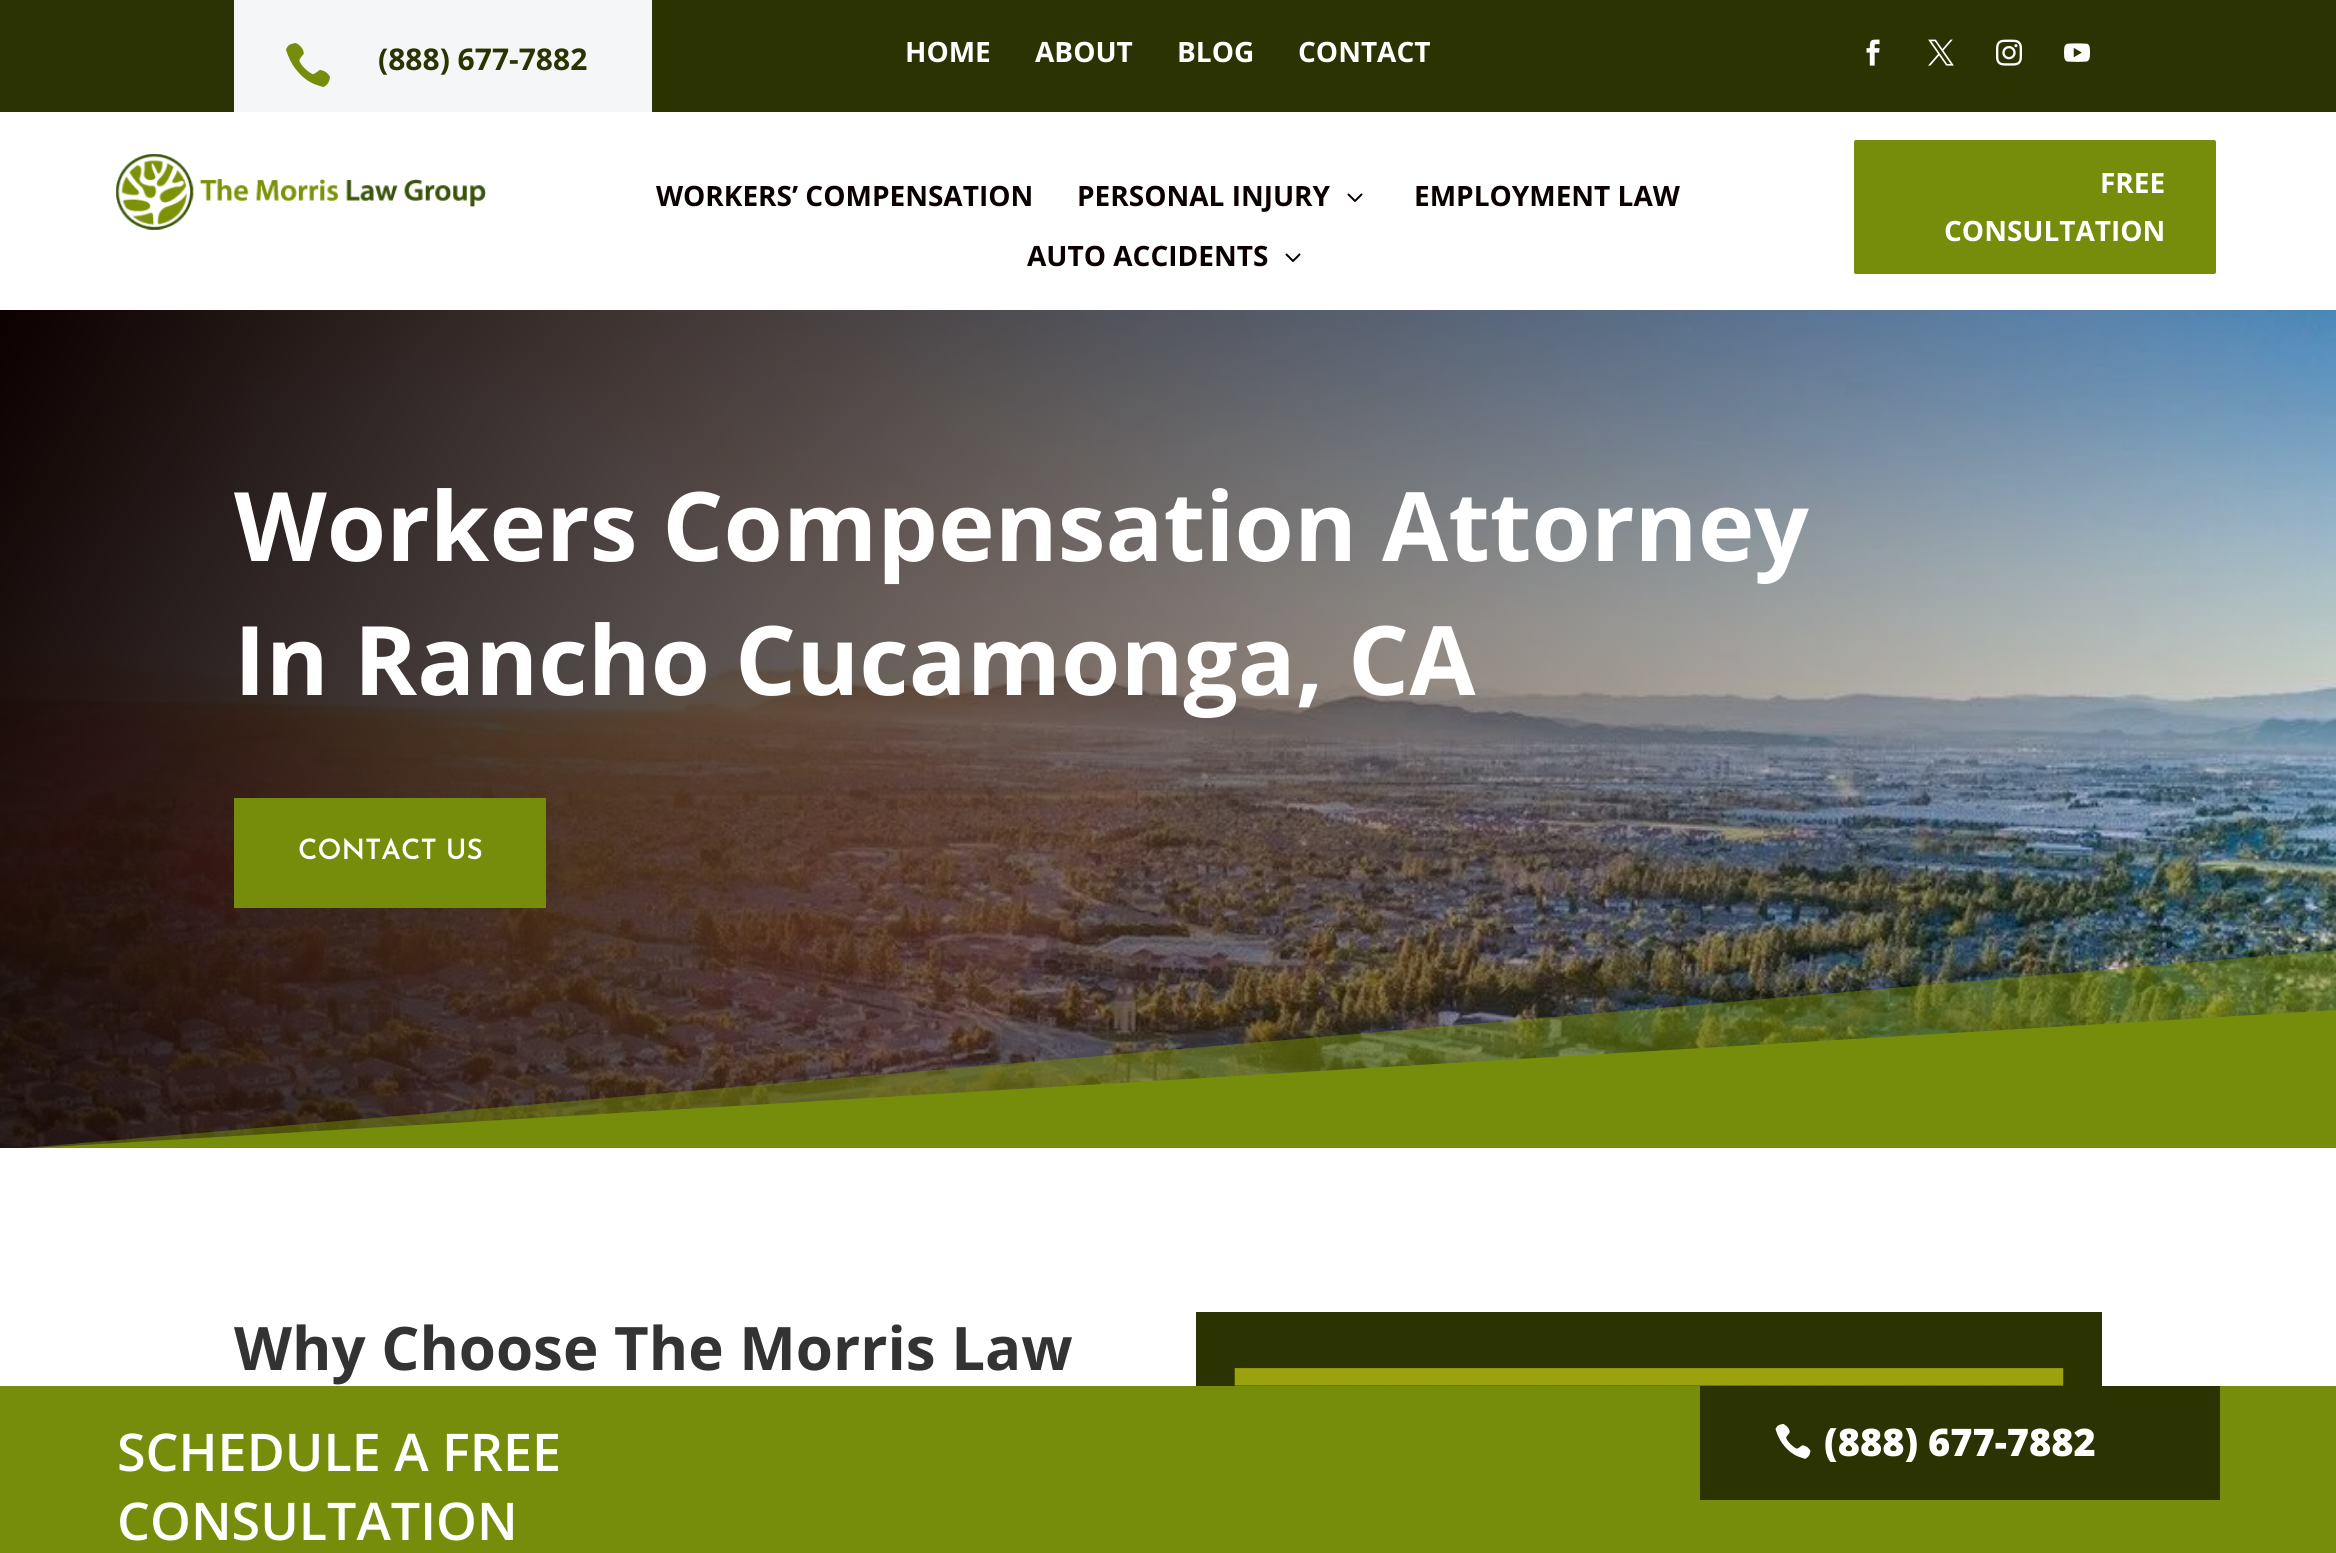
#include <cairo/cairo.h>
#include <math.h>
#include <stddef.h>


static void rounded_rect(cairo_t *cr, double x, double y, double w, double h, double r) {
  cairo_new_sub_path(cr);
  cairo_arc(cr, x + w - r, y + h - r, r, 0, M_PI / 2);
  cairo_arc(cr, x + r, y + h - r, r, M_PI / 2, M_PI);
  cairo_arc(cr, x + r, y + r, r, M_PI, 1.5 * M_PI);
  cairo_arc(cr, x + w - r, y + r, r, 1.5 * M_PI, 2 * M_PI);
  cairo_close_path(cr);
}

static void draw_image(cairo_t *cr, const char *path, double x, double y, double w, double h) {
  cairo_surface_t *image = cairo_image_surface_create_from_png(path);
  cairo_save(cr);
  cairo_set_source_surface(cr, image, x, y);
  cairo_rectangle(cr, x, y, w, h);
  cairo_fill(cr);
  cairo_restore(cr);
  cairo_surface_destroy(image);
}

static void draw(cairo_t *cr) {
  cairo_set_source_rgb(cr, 1, 1, 1);
  cairo_paint(cr);
  cairo_set_source_rgb(cr, 42 / 255.0, 51 / 255.0, 1 / 255.0);
  cairo_rectangle(cr, 0, 0, 2336, 112);
  cairo_fill(cr);
  cairo_set_source_rgb(cr, 245 / 255.0, 246 / 255.0, 247 / 255.0);
  cairo_rectangle(cr, 234, 0, 418, 112);
  cairo_fill(cr);
  draw_image(cr, "images/1.png", 286, 43, 44, 44);
  draw_image(cr, "images/2.png", 1866, 39, 14, 27);
  draw_image(cr, "images/3.png", 1928, 39, 26, 27);
  draw_image(cr, "images/4.png", 1996, 39, 26, 27);
  draw_image(cr, "images/5.png", 2064, 43, 26, 19);
  draw_image(cr, "images/6.png", 116, 154, 370, 76);
  draw_image(cr, "images/7.png", 1347, 193, 16, 9);
  draw_image(cr, "images/7.png", 1285, 253, 16, 9);
  cairo_set_source_rgb(cr, 118 / 255.0, 140 / 255.0, 11 / 255.0);
  rounded_rect(cr, 1852, 138, 366, 138, 4);
  cairo_fill_preserve(cr);
  cairo_set_source_rgb(cr, 1, 1, 1);
  cairo_set_line_width(cr, 4);
  cairo_stroke(cr);
  draw_image(cr, "images/8.png", 0, 310, 2336, 838);
  cairo_set_source_rgb(cr, 118 / 255.0, 140 / 255.0, 11 / 255.0);
  cairo_rectangle(cr, 234, 798, 312, 110);
  cairo_fill(cr);
  cairo_save(cr);
  cairo_rectangle(cr, 0, 948, 2336, 200);
  cairo_clip(cr);
  cairo_set_source_rgba(cr, 118 / 255.0, 140 / 255.0, 11 / 255.0, 0.5);
  cairo_new_path(cr);
  cairo_move_to(cr, 2336, 950);
  cairo_line_to(cr, 2336, 1150);
  cairo_line_to(cr, 0, 1150);
  cairo_close_path(cr);
  cairo_fill(cr);
  cairo_set_source_rgb(cr, 118 / 255.0, 140 / 255.0, 11 / 255.0);
  cairo_new_path(cr);
  cairo_move_to(cr, 2336, 1010);
  cairo_line_to(cr, 2336, 1150);
  cairo_line_to(cr, 0, 1150);
  cairo_close_path(cr);
  cairo_fill(cr);
  cairo_restore(cr);
  cairo_set_source_rgb(cr, 42 / 255.0, 51 / 255.0, 1 / 255.0);
  cairo_rectangle(cr, 1196, 1312, 906, 74);
  cairo_fill(cr);
  draw_image(cr, "images/9.png", 1234, 1368, 830, 18);
  cairo_set_source_rgb(cr, 118 / 255.0, 140 / 255.0, 11 / 255.0);
  cairo_rectangle(cr, 0, 1386, 2336, 167);
  cairo_fill(cr);
  cairo_set_source_rgb(cr, 42 / 255.0, 51 / 255.0, 1 / 255.0);
  cairo_rectangle(cr, 1700, 1386, 520, 114);
  cairo_fill(cr);
  draw_image(cr, "images/10.png", 1775, 1424, 36, 35);
  cairo_select_font_face(cr, "Open Sans", CAIRO_FONT_SLANT_NORMAL, CAIRO_FONT_WEIGHT_BOLD);
  cairo_set_font_size(cr, 30);
  cairo_move_to(cr, 378, 70);
  cairo_show_text(cr, "(888) 677-7882");
  cairo_set_font_size(cr, 28);
  cairo_set_source_rgb(cr, 1, 1, 1);
  cairo_move_to(cr, 905, 62);
  cairo_show_text(cr, "HOME");
  cairo_move_to(cr, 1035, 62);
  cairo_show_text(cr, "ABOUT");
  cairo_move_to(cr, 1177, 62);
  cairo_show_text(cr, "BLOG");
  cairo_move_to(cr, 1298, 62);
  cairo_show_text(cr, "CONTACT");
  cairo_set_source_rgb(cr, 10 / 255.0, 0, 0);
  cairo_move_to(cr, 656, 206);
  cairo_show_text(cr, "WORKERS’ COMPENSATION");
  cairo_move_to(cr, 1077, 206);
  cairo_show_text(cr, "PERSONAL INJURY");
  cairo_move_to(cr, 1414, 206);
  cairo_show_text(cr, "EMPLOYMENT LAW");
  cairo_move_to(cr, 1027, 266);
  cairo_show_text(cr, "AUTO ACCIDENTS");
  cairo_set_source_rgb(cr, 1, 1, 1);
  cairo_move_to(cr, 2100, 193);
  cairo_show_text(cr, "FREE");
  cairo_move_to(cr, 1944, 241);
  cairo_show_text(cr, "CONSULTATION");
  cairo_set_font_size(cr, 96);
  cairo_move_to(cr, 234, 561);
  cairo_show_text(cr, "Workers Compensation Attorney");
  cairo_move_to(cr, 234, 695);
  cairo_show_text(cr, "In Rancho Cucamonga, CA");
  cairo_select_font_face(cr, "Josefin Sans SemiBold", CAIRO_FONT_SLANT_NORMAL, CAIRO_FONT_WEIGHT_NORMAL);
  cairo_set_font_size(cr, 28);
  cairo_move_to(cr, 298, 859);
  cairo_show_text(cr, "CONTACT US");
  cairo_select_font_face(cr, "Open Sans", CAIRO_FONT_SLANT_NORMAL, CAIRO_FONT_WEIGHT_BOLD);
  cairo_set_font_size(cr, 60);
  cairo_set_source_rgb(cr, 51 / 255.0, 51 / 255.0, 51 / 255.0);
  cairo_move_to(cr, 234, 1370);
  cairo_show_text(cr, "Why Choose The Morris Law");
  cairo_select_font_face(cr, "Open Sans SemiBold", CAIRO_FONT_SLANT_NORMAL, CAIRO_FONT_WEIGHT_NORMAL);
  cairo_set_font_size(cr, 52);
  cairo_set_source_rgb(cr, 1, 1, 1);
  cairo_move_to(cr, 117, 1471);
  cairo_show_text(cr, "SCHEDULE A FREE");
  cairo_move_to(cr, 117, 1540);
  cairo_show_text(cr, "CONSULTATION");
  cairo_select_font_face(cr, "Open Sans ExtraBold", CAIRO_FONT_SLANT_NORMAL, CAIRO_FONT_WEIGHT_NORMAL);
  cairo_set_font_size(cr, 38);
  cairo_move_to(cr, 1824, 1456);
  cairo_show_text(cr, "(888) 677-7882");
}

int main(void) {
  cairo_surface_t *surface = cairo_image_surface_create(CAIRO_FORMAT_RGB24, 2336, 1553);
  cairo_t *cr = cairo_create(surface);
  cairo_font_options_t *options = cairo_font_options_create();
  cairo_font_options_set_hint_metrics(options, CAIRO_HINT_METRICS_OFF);
  cairo_font_options_set_hint_style(options, CAIRO_HINT_STYLE_NONE);
  cairo_set_font_options(cr, options);
  cairo_set_miter_limit(cr, 4);
  draw(cr);
  cairo_surface_write_to_png(surface, "out.png");
  cairo_font_options_destroy(options);
  cairo_destroy(cr);
  cairo_surface_destroy(surface);
  return 0;
}
